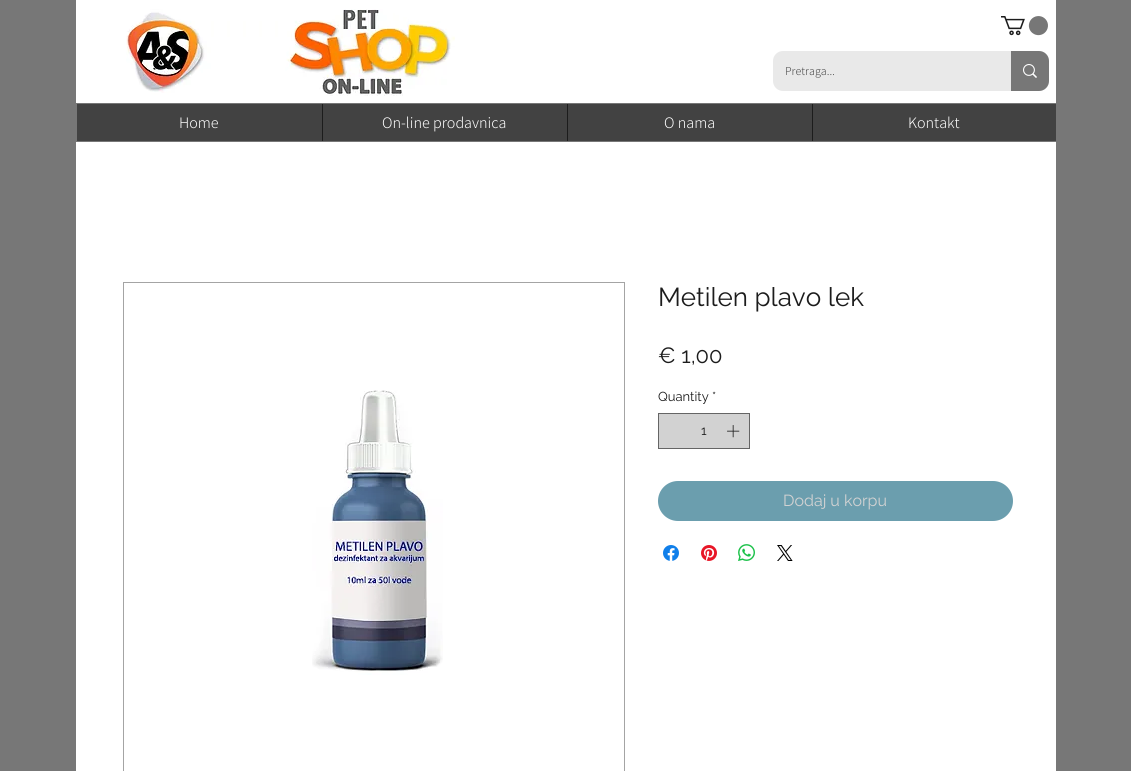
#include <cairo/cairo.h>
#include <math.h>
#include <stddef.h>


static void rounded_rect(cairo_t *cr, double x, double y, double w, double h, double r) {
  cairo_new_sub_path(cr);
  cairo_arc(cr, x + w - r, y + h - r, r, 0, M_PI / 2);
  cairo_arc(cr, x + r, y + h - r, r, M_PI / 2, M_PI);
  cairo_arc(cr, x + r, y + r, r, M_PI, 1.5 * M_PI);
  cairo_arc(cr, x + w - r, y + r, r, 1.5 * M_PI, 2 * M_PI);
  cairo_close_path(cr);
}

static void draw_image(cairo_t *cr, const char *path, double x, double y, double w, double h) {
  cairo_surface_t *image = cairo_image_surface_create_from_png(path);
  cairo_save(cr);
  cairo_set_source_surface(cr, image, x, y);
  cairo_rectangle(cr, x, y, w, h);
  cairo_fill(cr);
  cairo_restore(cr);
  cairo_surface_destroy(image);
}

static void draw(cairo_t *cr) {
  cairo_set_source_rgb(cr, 119 / 255.0, 119 / 255.0, 119 / 255.0);
  cairo_paint(cr);
  cairo_set_source_rgb(cr, 1, 1, 1);
  cairo_rectangle(cr, 76, 0, 980, 103);
  cairo_fill(cr);
  draw_image(cr, "images/1.png", 126, 9, 329, 87);
  draw_image(cr, "images/2.png", 1001, 16, 47, 20);
  cairo_set_source_rgb(cr, 233 / 255.0, 233 / 255.0, 233 / 255.0);
  rounded_rect(cr, 773, 51, 276, 40, 10);
  cairo_fill(cr);
  cairo_set_source_rgb(cr, 119 / 255.0, 119 / 255.0, 119 / 255.0);
  cairo_new_path(cr);
  cairo_move_to(cr, 1011, 51);
  cairo_line_to(cr, 1039, 51);
  cairo_curve_to(cr, 1044.5, 51, 1049, 55.5, 1049, 61);
  cairo_line_to(cr, 1049, 81);
  cairo_curve_to(cr, 1049, 86.5, 1044.5, 91, 1039, 91);
  cairo_line_to(cr, 1011, 91);
  cairo_close_path(cr);
  cairo_fill(cr);
  draw_image(cr, "images/3.png", 1023, 64, 14, 14);
  cairo_set_source_rgb(cr, 66 / 255.0, 66 / 255.0, 66 / 255.0);
  cairo_rectangle(cr, 77, 104, 979, 37);
  cairo_fill(cr);
  cairo_set_source_rgb(cr, 28 / 255.0, 28 / 255.0, 28 / 255.0);
  cairo_rectangle(cr, 322, 104, 1, 37);
  cairo_fill(cr);
  cairo_rectangle(cr, 567, 104, 1, 37);
  cairo_fill(cr);
  cairo_rectangle(cr, 812, 104, 1, 37);
  cairo_fill(cr);
  cairo_set_source_rgb(cr, 1, 1, 1);
  cairo_rectangle(cr, 76, 142, 980, 629);
  cairo_fill(cr);
  cairo_rectangle(cr, 123.5, 282.5, 501, 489);
  cairo_set_source_rgb(cr, 164 / 255.0, 164 / 255.0, 164 / 255.0);
  cairo_set_line_width(cr, 1);
  cairo_stroke(cr);
  draw_image(cr, "images/4.png", 312, 390, 131, 285);
  cairo_set_source_rgb(cr, 210 / 255.0, 210 / 255.0, 210 / 255.0);
  cairo_rectangle(cr, 658.5, 413.5, 91, 35);
  cairo_fill_preserve(cr);
  cairo_set_source_rgb(cr, 101 / 255.0, 101 / 255.0, 101 / 255.0);
  cairo_stroke(cr);
  draw_image(cr, "images/5.png", 727, 425, 13, 13);
  cairo_set_source_rgb(cr, 107 / 255.0, 158 / 255.0, 174 / 255.0);
  rounded_rect(cr, 658, 481, 355, 40, 20);
  cairo_fill(cr);
  draw_image(cr, "images/6.png", 663, 545, 16, 16);
  draw_image(cr, "images/7.png", 701, 545, 16, 16);
  draw_image(cr, "images/8.png", 738, 544, 17, 17);
  draw_image(cr, "images/9.png", 777, 545, 16, 16);
  cairo_select_font_face(cr, "Assistant Light", CAIRO_FONT_SLANT_NORMAL, CAIRO_FONT_WEIGHT_NORMAL);
  cairo_set_font_size(cr, 12);
  cairo_set_source_rgb(cr, 73 / 255.0, 73 / 255.0, 73 / 255.0);
  cairo_move_to(cr, 785, 75);
  cairo_show_text(cr, "Pretraga...");
  cairo_set_font_size(cr, 16);
  cairo_set_source_rgb(cr, 1, 1, 1);
  cairo_move_to(cr, 179, 128);
  cairo_show_text(cr, "Home");
  cairo_move_to(cr, 382, 128);
  cairo_show_text(cr, "On-line prodavnica");
  cairo_move_to(cr, 664, 128);
  cairo_show_text(cr, "O nama");
  cairo_move_to(cr, 908, 128);
  cairo_show_text(cr, "Kontakt");
  cairo_select_font_face(cr, "Raleway", CAIRO_FONT_SLANT_NORMAL, CAIRO_FONT_WEIGHT_NORMAL);
  cairo_set_font_size(cr, 26);
  cairo_set_source_rgb(cr, 28 / 255.0, 28 / 255.0, 28 / 255.0);
  cairo_move_to(cr, 658, 306);
  cairo_show_text(cr, "Metilen plavo lek");
  cairo_set_font_size(cr, 22);
  cairo_move_to(cr, 658, 363);
  cairo_show_text(cr, "€ 1,00");
  cairo_set_font_size(cr, 13);
  cairo_move_to(cr, 658, 401);
  cairo_show_text(cr, "Quantity");
  cairo_move_to(cr, 712, 401);
  cairo_show_text(cr, "*");
  cairo_move_to(cr, 701, 435);
  cairo_show_text(cr, "1");
  cairo_set_font_size(cr, 16);
  cairo_set_source_rgb(cr, 210 / 255.0, 210 / 255.0, 210 / 255.0);
  cairo_move_to(cr, 783, 506);
  cairo_show_text(cr, "Dodaj u korpu");
}

int main(void) {
  cairo_surface_t *surface = cairo_image_surface_create(CAIRO_FORMAT_RGB24, 1131, 771);
  cairo_t *cr = cairo_create(surface);
  cairo_font_options_t *options = cairo_font_options_create();
  cairo_font_options_set_hint_metrics(options, CAIRO_HINT_METRICS_OFF);
  cairo_font_options_set_hint_style(options, CAIRO_HINT_STYLE_NONE);
  cairo_set_font_options(cr, options);
  cairo_set_miter_limit(cr, 4);
  draw(cr);
  cairo_surface_write_to_png(surface, "out.png");
  cairo_font_options_destroy(options);
  cairo_destroy(cr);
  cairo_surface_destroy(surface);
  return 0;
}
